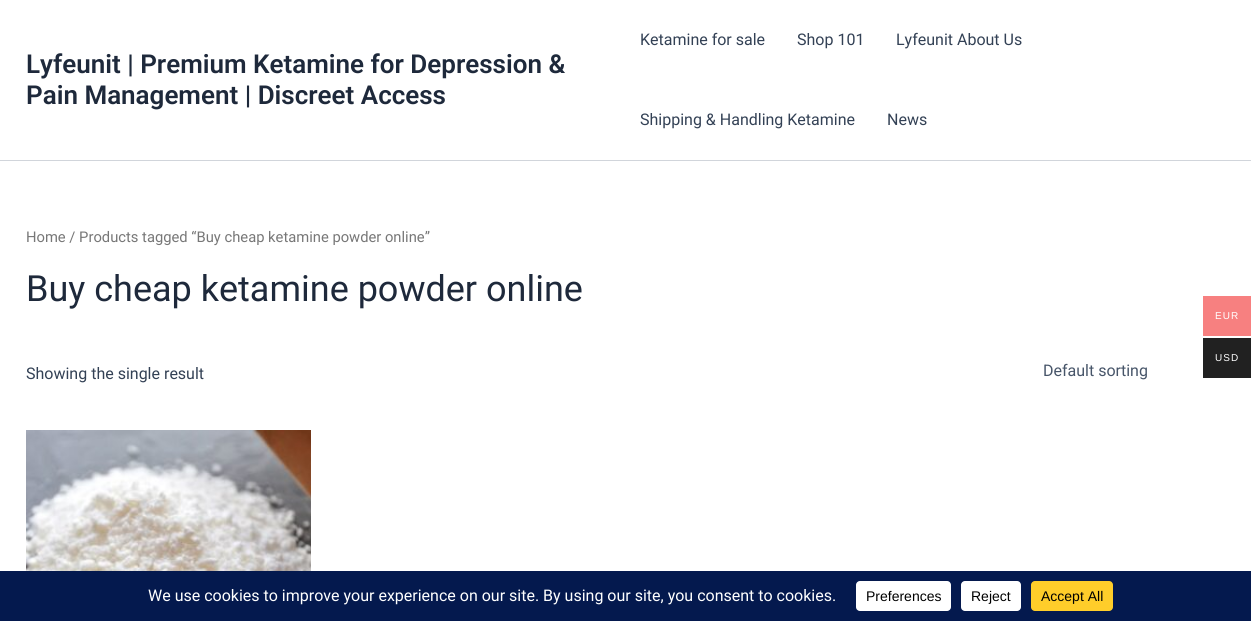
#include <cairo/cairo.h>
#include <math.h>
#include <stddef.h>


static void draw_spaced(cairo_t *cr, double x, double y, const char *s, double letter, double word) {
  cairo_move_to(cr, x, y);
  while (*s) {
    char ch[5] = {0};
    int n = 0;
    do ch[n++] = *s++; while ((*s & 0xC0) == 0x80);
    cairo_show_text(cr, ch);
    cairo_rel_move_to(cr, letter + word * (*ch == ' '), 0);
  }
}

static void rounded_rect(cairo_t *cr, double x, double y, double w, double h, double r) {
  cairo_new_sub_path(cr);
  cairo_arc(cr, x + w - r, y + h - r, r, 0, M_PI / 2);
  cairo_arc(cr, x + r, y + h - r, r, M_PI / 2, M_PI);
  cairo_arc(cr, x + r, y + r, r, M_PI, 1.5 * M_PI);
  cairo_arc(cr, x + w - r, y + r, r, 1.5 * M_PI, 2 * M_PI);
  cairo_close_path(cr);
}

static void draw_image(cairo_t *cr, const char *path, double x, double y, double w, double h) {
  cairo_surface_t *image = cairo_image_surface_create_from_png(path);
  cairo_save(cr);
  cairo_set_source_surface(cr, image, x, y);
  cairo_rectangle(cr, x, y, w, h);
  cairo_fill(cr);
  cairo_restore(cr);
  cairo_surface_destroy(image);
}

static void draw(cairo_t *cr) {
  cairo_set_source_rgb(cr, 1, 1, 1);
  cairo_paint(cr);
  cairo_set_source_rgb(cr, 209 / 255.0, 213 / 255.0, 219 / 255.0);
  cairo_rectangle(cr, 0, 160, 1251, 1);
  cairo_fill(cr);
  draw_image(cr, "images/1.png", 26, 430, 285, 141);
  cairo_set_source_rgb(cr, 247 / 255.0, 128 / 255.0, 128 / 255.0);
  cairo_rectangle(cr, 1203, 296, 48, 40);
  cairo_fill(cr);
  cairo_set_source_rgb(cr, 33 / 255.0, 33 / 255.0, 33 / 255.0);
  cairo_rectangle(cr, 1203, 338, 48, 40);
  cairo_fill(cr);
  cairo_set_source_rgb(cr, 4 / 255.0, 25 / 255.0, 78 / 255.0);
  cairo_rectangle(cr, 0, 571, 1251, 50);
  cairo_fill(cr);
  cairo_set_source_rgb(cr, 1, 1, 1);
  rounded_rect(cr, 856, 581, 95, 30, 4);
  cairo_fill(cr);
  rounded_rect(cr, 961, 581, 60, 30, 4);
  cairo_fill(cr);
  cairo_set_source_rgb(cr, 1, 205 / 255.0, 42 / 255.0);
  rounded_rect(cr, 1031, 581, 82, 30, 4);
  cairo_fill(cr);
  cairo_select_font_face(cr, "Roboto SemiBold", CAIRO_FONT_SLANT_NORMAL, CAIRO_FONT_WEIGHT_NORMAL);
  cairo_set_font_size(cr, 26);
  cairo_set_source_rgb(cr, 30 / 255.0, 41 / 255.0, 59 / 255.0);
  cairo_move_to(cr, 26, 73);
  cairo_show_text(cr, "Lyfeunit | Premium Ketamine for Depression &");
  cairo_move_to(cr, 26, 104);
  cairo_show_text(cr, "Pain Management | Discreet Access");
  cairo_select_font_face(cr, "Roboto", CAIRO_FONT_SLANT_NORMAL, CAIRO_FONT_WEIGHT_NORMAL);
  cairo_set_font_size(cr, 16);
  cairo_set_source_rgb(cr, 51 / 255.0, 65 / 255.0, 85 / 255.0);
  cairo_move_to(cr, 640, 45);
  cairo_show_text(cr, "Ketamine for sale");
  cairo_move_to(cr, 797, 45);
  cairo_show_text(cr, "Shop 101");
  cairo_move_to(cr, 896, 45);
  cairo_show_text(cr, "Lyfeunit About Us");
  cairo_move_to(cr, 640, 125);
  cairo_show_text(cr, "Shipping & Handling Ketamine");
  cairo_move_to(cr, 887, 125);
  cairo_show_text(cr, "News");
  cairo_set_font_size(cr, 14.75);
  cairo_set_source_rgb(cr, 119 / 255.0, 119 / 255.0, 119 / 255.0);
  cairo_move_to(cr, 26, 242);
  cairo_show_text(cr, "Home / Products tagged “Buy cheap ketamine powder online”");
  cairo_set_font_size(cr, 36);
  cairo_set_source_rgb(cr, 30 / 255.0, 41 / 255.0, 59 / 255.0);
  cairo_move_to(cr, 26, 301);
  cairo_show_text(cr, "Buy cheap ketamine powder online");
  cairo_set_font_size(cr, 16);
  cairo_set_source_rgb(cr, 51 / 255.0, 65 / 255.0, 85 / 255.0);
  cairo_move_to(cr, 26, 379);
  cairo_show_text(cr, "Showing the single result");
  cairo_set_source_rgb(cr, 71 / 255.0, 85 / 255.0, 105 / 255.0);
  cairo_move_to(cr, 1043, 376);
  cairo_show_text(cr, "Default sorting");
  cairo_select_font_face(cr, "Liberation Sans", CAIRO_FONT_SLANT_NORMAL, CAIRO_FONT_WEIGHT_NORMAL);
  cairo_set_font_size(cr, 10);
  cairo_set_source_rgb(cr, 1, 1, 1);
  draw_spaced(cr, 1215, 319, "EUR", 1, 0);
  draw_spaced(cr, 1215, 361, "USD", 1, 0);
  cairo_select_font_face(cr, "Roboto", CAIRO_FONT_SLANT_NORMAL, CAIRO_FONT_WEIGHT_NORMAL);
  cairo_set_font_size(cr, 16);
  cairo_move_to(cr, 148, 601);
  cairo_show_text(cr, "We use cookies to improve your experience on our site. By using our site, you consent to cookies.");
  cairo_select_font_face(cr, "Liberation Sans", CAIRO_FONT_SLANT_NORMAL, CAIRO_FONT_WEIGHT_NORMAL);
  cairo_set_font_size(cr, 14);
  cairo_set_source_rgb(cr, 0, 0, 0);
  cairo_move_to(cr, 866, 601);
  cairo_show_text(cr, "Preferences");
  cairo_move_to(cr, 971, 601);
  cairo_show_text(cr, "Reject");
  cairo_move_to(cr, 1041, 601);
  cairo_show_text(cr, "Accept All");
}

int main(void) {
  cairo_surface_t *surface = cairo_image_surface_create(CAIRO_FORMAT_RGB24, 1251, 621);
  cairo_t *cr = cairo_create(surface);
  cairo_font_options_t *options = cairo_font_options_create();
  cairo_font_options_set_hint_metrics(options, CAIRO_HINT_METRICS_OFF);
  cairo_font_options_set_hint_style(options, CAIRO_HINT_STYLE_NONE);
  cairo_set_font_options(cr, options);
  cairo_set_miter_limit(cr, 4);
  draw(cr);
  cairo_surface_write_to_png(surface, "out.png");
  cairo_font_options_destroy(options);
  cairo_destroy(cr);
  cairo_surface_destroy(surface);
  return 0;
}
